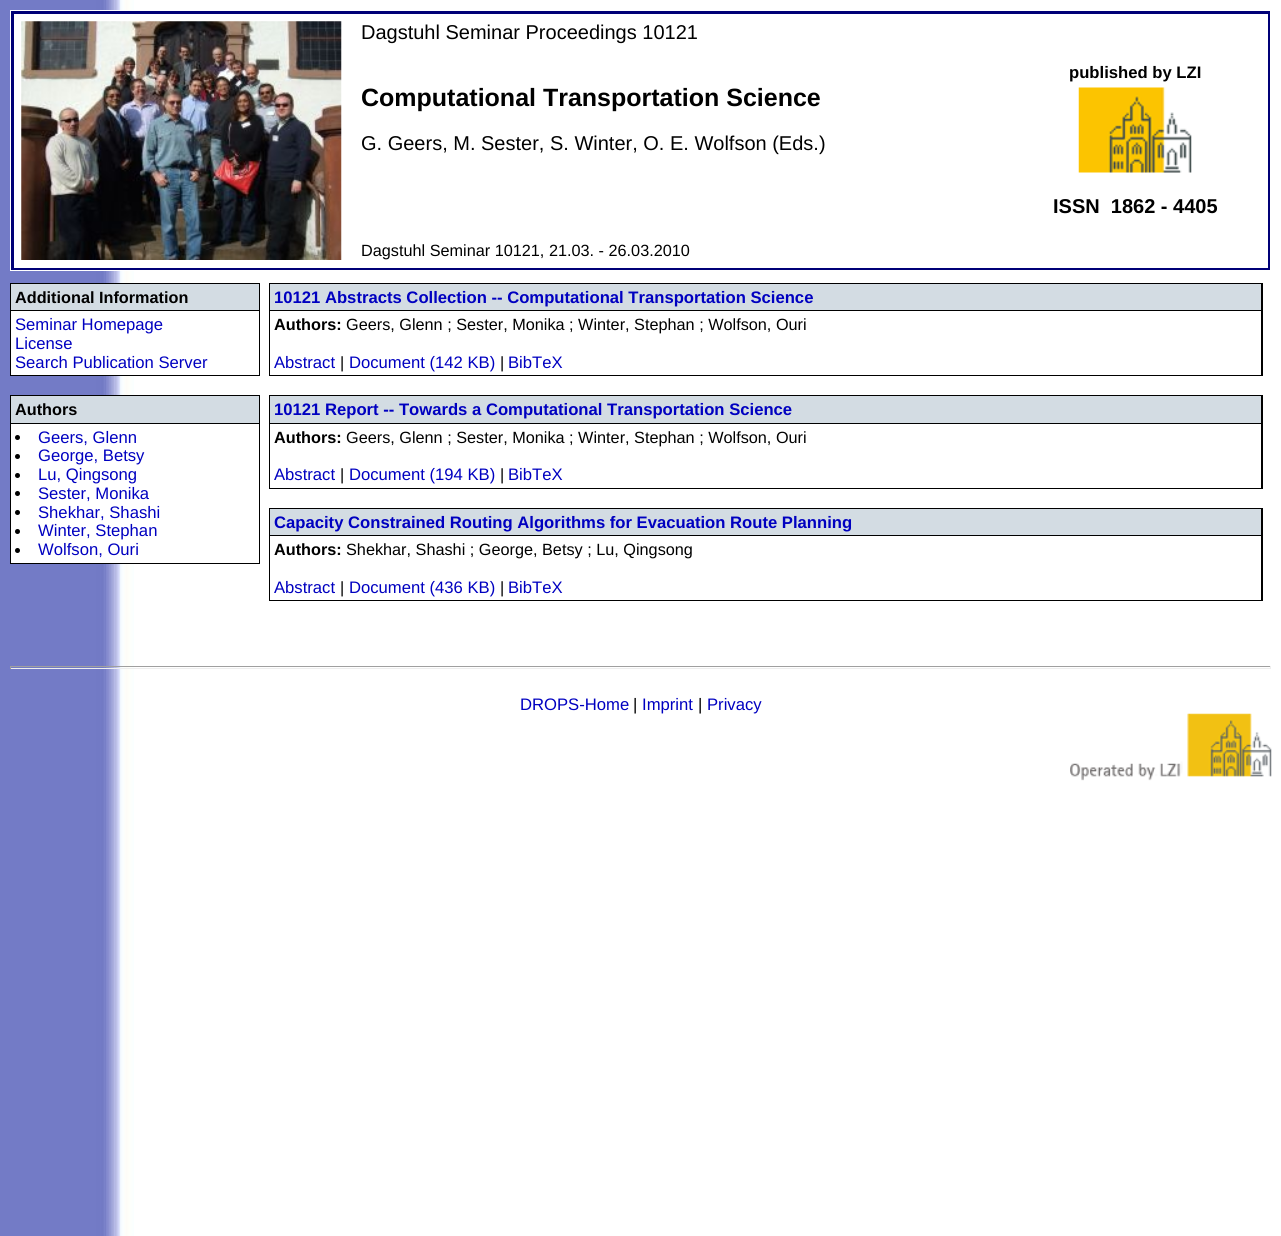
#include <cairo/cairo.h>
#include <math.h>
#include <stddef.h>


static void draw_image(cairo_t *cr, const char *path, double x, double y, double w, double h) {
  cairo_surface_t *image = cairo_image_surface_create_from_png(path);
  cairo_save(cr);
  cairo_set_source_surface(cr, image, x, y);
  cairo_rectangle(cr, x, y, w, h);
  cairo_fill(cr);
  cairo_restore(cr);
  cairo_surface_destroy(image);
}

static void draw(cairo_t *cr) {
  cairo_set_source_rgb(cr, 1, 1, 1);
  cairo_paint(cr);
  draw_image(cr, "images/1.png", 0, 0, 134, 1236);
  cairo_set_source_rgb(cr, 1, 1, 1);
  cairo_rectangle(cr, 10, 10, 124, 261);
  cairo_fill(cr);
  cairo_set_source_rgb(cr, 0, 0, 119 / 255.0);
  cairo_rectangle(cr, 11, 11, 1259, 259);
  cairo_fill(cr);
  cairo_set_source_rgb(cr, 1, 1, 1);
  cairo_rectangle(cr, 14, 14, 1254, 254);
  cairo_fill(cr);
  draw_image(cr, "images/2.png", 21, 21, 321, 239);
  draw_image(cr, "images/3.png", 1078, 87, 114, 86);
  cairo_set_source_rgb(cr, 0, 0, 0);
  cairo_rectangle(cr, 10, 283, 250, 93);
  cairo_fill(cr);
  cairo_set_source_rgb(cr, 211 / 255.0, 220 / 255.0, 227 / 255.0);
  cairo_rectangle(cr, 11, 284, 248, 26);
  cairo_fill(cr);
  cairo_set_source_rgb(cr, 1, 1, 1);
  cairo_rectangle(cr, 11, 311, 248, 64);
  cairo_fill(cr);
  cairo_set_source_rgb(cr, 0, 0, 0);
  cairo_rectangle(cr, 10, 395, 250, 169);
  cairo_fill(cr);
  cairo_set_source_rgb(cr, 211 / 255.0, 220 / 255.0, 227 / 255.0);
  cairo_rectangle(cr, 11, 396, 248, 27);
  cairo_fill(cr);
  cairo_set_source_rgb(cr, 1, 1, 1);
  cairo_rectangle(cr, 11, 424, 248, 139);
  cairo_fill(cr);
  cairo_set_source_rgb(cr, 0, 0, 0);
  cairo_arc(cr, 17.5, 437.5, 2.5, 0, 2 * M_PI);
  cairo_fill(cr);
  cairo_arc(cr, 17.5, 456.5, 2.5, 0, 2 * M_PI);
  cairo_fill(cr);
  cairo_arc(cr, 17.5, 475.5, 2.5, 0, 2 * M_PI);
  cairo_fill(cr);
  cairo_arc(cr, 17.5, 493.5, 2.5, 0, 2 * M_PI);
  cairo_fill(cr);
  cairo_arc(cr, 17.5, 512.5, 2.5, 0, 2 * M_PI);
  cairo_fill(cr);
  cairo_arc(cr, 17.5, 531.5, 2.5, 0, 2 * M_PI);
  cairo_fill(cr);
  cairo_arc(cr, 17.5, 550.5, 2.5, 0, 2 * M_PI);
  cairo_fill(cr);
  cairo_rectangle(cr, 269, 283, 994, 93);
  cairo_fill(cr);
  cairo_set_source_rgb(cr, 211 / 255.0, 220 / 255.0, 227 / 255.0);
  cairo_rectangle(cr, 270, 284, 991, 26);
  cairo_fill(cr);
  cairo_set_source_rgb(cr, 1, 1, 1);
  cairo_rectangle(cr, 270, 311, 991, 64);
  cairo_fill(cr);
  cairo_set_source_rgb(cr, 0, 0, 0);
  cairo_rectangle(cr, 269, 395, 994, 94);
  cairo_fill(cr);
  cairo_set_source_rgb(cr, 211 / 255.0, 220 / 255.0, 227 / 255.0);
  cairo_rectangle(cr, 270, 396, 991, 27);
  cairo_fill(cr);
  cairo_set_source_rgb(cr, 1, 1, 1);
  cairo_rectangle(cr, 270, 424, 991, 64);
  cairo_fill(cr);
  cairo_set_source_rgb(cr, 0, 0, 0);
  cairo_rectangle(cr, 269, 508, 994, 93);
  cairo_fill(cr);
  cairo_set_source_rgb(cr, 211 / 255.0, 220 / 255.0, 227 / 255.0);
  cairo_rectangle(cr, 270, 509, 991, 26);
  cairo_fill(cr);
  cairo_set_source_rgb(cr, 1, 1, 1);
  cairo_rectangle(cr, 270, 536, 991, 64);
  cairo_fill(cr);
  cairo_set_source_rgb(cr, 159 / 255.0, 159 / 255.0, 159 / 255.0);
  cairo_rectangle(cr, 10, 666, 1261, 1);
  cairo_fill(cr);
  cairo_set_source_rgb(cr, 238 / 255.0, 238 / 255.0, 238 / 255.0);
  cairo_rectangle(cr, 1270, 666, 1, 3);
  cairo_fill(cr);
  cairo_rectangle(cr, 10, 668, 1261, 1);
  cairo_fill(cr);
  cairo_set_source_rgb(cr, 159 / 255.0, 159 / 255.0, 159 / 255.0);
  cairo_rectangle(cr, 10, 666, 1, 3);
  cairo_fill(cr);
  draw_image(cr, "images/4.png", 1070, 713, 202, 68);
  cairo_select_font_face(cr, "Liberation Sans", CAIRO_FONT_SLANT_NORMAL, CAIRO_FONT_WEIGHT_NORMAL);
  cairo_set_font_size(cr, 20);
  cairo_set_source_rgb(cr, 0, 0, 0);
  cairo_move_to(cr, 361, 39);
  cairo_show_text(cr, "Dagstuhl Seminar Proceedings 10121");
  cairo_select_font_face(cr, "Liberation Sans", CAIRO_FONT_SLANT_NORMAL, CAIRO_FONT_WEIGHT_BOLD);
  cairo_set_font_size(cr, 25);
  cairo_move_to(cr, 361, 106);
  cairo_show_text(cr, "Computational Transportation Science");
  cairo_select_font_face(cr, "Liberation Sans", CAIRO_FONT_SLANT_NORMAL, CAIRO_FONT_WEIGHT_NORMAL);
  cairo_set_font_size(cr, 20);
  cairo_move_to(cr, 361, 150);
  cairo_show_text(cr, "G. Geers, M. Sester, S. Winter, O. E. Wolfson (Eds.)");
  cairo_select_font_face(cr, "Liberation Sans", CAIRO_FONT_SLANT_NORMAL, CAIRO_FONT_WEIGHT_BOLD);
  cairo_set_font_size(cr, 16.65);
  cairo_move_to(cr, 1069, 78);
  cairo_show_text(cr, "published by LZI");
  cairo_set_font_size(cr, 20);
  cairo_move_to(cr, 1053, 213);
  cairo_show_text(cr, "ISSN  1862 - 4405");
  cairo_select_font_face(cr, "Liberation Sans", CAIRO_FONT_SLANT_NORMAL, CAIRO_FONT_WEIGHT_NORMAL);
  cairo_set_font_size(cr, 16.25);
  cairo_move_to(cr, 361, 256);
  cairo_show_text(cr, "Dagstuhl Seminar 10121, 21.03. - 26.03.2010");
  cairo_select_font_face(cr, "Liberation Sans", CAIRO_FONT_SLANT_NORMAL, CAIRO_FONT_WEIGHT_BOLD);
  cairo_move_to(cr, 15, 303);
  cairo_show_text(cr, "Additional Information");
  cairo_select_font_face(cr, "Liberation Sans", CAIRO_FONT_SLANT_NORMAL, CAIRO_FONT_WEIGHT_NORMAL);
  cairo_set_font_size(cr, 16.65);
  cairo_set_source_rgb(cr, 0, 0, 192 / 255.0);
  cairo_move_to(cr, 15, 330);
  cairo_show_text(cr, "Seminar Homepage");
  cairo_move_to(cr, 15, 349);
  cairo_show_text(cr, "License");
  cairo_move_to(cr, 15, 368);
  cairo_show_text(cr, "Search Publication Server");
  cairo_select_font_face(cr, "Liberation Sans", CAIRO_FONT_SLANT_NORMAL, CAIRO_FONT_WEIGHT_BOLD);
  cairo_set_font_size(cr, 16.25);
  cairo_set_source_rgb(cr, 0, 0, 0);
  cairo_move_to(cr, 15, 415);
  cairo_show_text(cr, "Authors");
  cairo_select_font_face(cr, "Liberation Sans", CAIRO_FONT_SLANT_NORMAL, CAIRO_FONT_WEIGHT_NORMAL);
  cairo_set_font_size(cr, 16.65);
  cairo_set_source_rgb(cr, 0, 0, 192 / 255.0);
  cairo_move_to(cr, 38, 443);
  cairo_show_text(cr, "Geers, Glenn");
  cairo_move_to(cr, 38, 461);
  cairo_show_text(cr, "George, Betsy");
  cairo_move_to(cr, 38, 480);
  cairo_show_text(cr, "Lu, Qingsong");
  cairo_move_to(cr, 38, 499);
  cairo_show_text(cr, "Sester, Monika");
  cairo_move_to(cr, 38, 518);
  cairo_show_text(cr, "Shekhar, Shashi");
  cairo_move_to(cr, 38, 536);
  cairo_show_text(cr, "Winter, Stephan");
  cairo_move_to(cr, 38, 555);
  cairo_show_text(cr, "Wolfson, Ouri");
  cairo_select_font_face(cr, "Liberation Sans", CAIRO_FONT_SLANT_NORMAL, CAIRO_FONT_WEIGHT_BOLD);
  cairo_move_to(cr, 274, 303);
  cairo_show_text(cr, "10121 Abstracts Collection -- Computational Transportation Science");
  cairo_set_font_size(cr, 16.25);
  cairo_set_source_rgb(cr, 0, 0, 0);
  cairo_move_to(cr, 274, 330);
  cairo_show_text(cr, "Authors:");
  cairo_select_font_face(cr, "Liberation Sans", CAIRO_FONT_SLANT_NORMAL, CAIRO_FONT_WEIGHT_NORMAL);
  cairo_move_to(cr, 346, 330);
  cairo_show_text(cr, "Geers, Glenn ; Sester, Monika ; Winter, Stephan ; Wolfson, Ouri");
  cairo_set_font_size(cr, 16.65);
  cairo_set_source_rgb(cr, 0, 0, 192 / 255.0);
  cairo_move_to(cr, 274, 368);
  cairo_show_text(cr, "Abstract");
  cairo_set_font_size(cr, 16.25);
  cairo_set_source_rgb(cr, 0, 0, 0);
  cairo_move_to(cr, 340, 368);
  cairo_show_text(cr, "|");
  cairo_set_font_size(cr, 16.65);
  cairo_set_source_rgb(cr, 0, 0, 192 / 255.0);
  cairo_move_to(cr, 349, 368);
  cairo_show_text(cr, "Document (142 KB)");
  cairo_set_font_size(cr, 16.25);
  cairo_set_source_rgb(cr, 0, 0, 0);
  cairo_move_to(cr, 500, 368);
  cairo_show_text(cr, "|");
  cairo_set_font_size(cr, 16.65);
  cairo_set_source_rgb(cr, 0, 0, 192 / 255.0);
  cairo_move_to(cr, 508, 368);
  cairo_show_text(cr, "BibTeX");
  cairo_select_font_face(cr, "Liberation Sans", CAIRO_FONT_SLANT_NORMAL, CAIRO_FONT_WEIGHT_BOLD);
  cairo_move_to(cr, 274, 415);
  cairo_show_text(cr, "10121 Report -- Towards a Computational Transportation Science");
  cairo_set_font_size(cr, 16.25);
  cairo_set_source_rgb(cr, 0, 0, 0);
  cairo_move_to(cr, 274, 443);
  cairo_show_text(cr, "Authors:");
  cairo_select_font_face(cr, "Liberation Sans", CAIRO_FONT_SLANT_NORMAL, CAIRO_FONT_WEIGHT_NORMAL);
  cairo_move_to(cr, 346, 443);
  cairo_show_text(cr, "Geers, Glenn ; Sester, Monika ; Winter, Stephan ; Wolfson, Ouri");
  cairo_set_font_size(cr, 16.65);
  cairo_set_source_rgb(cr, 0, 0, 192 / 255.0);
  cairo_move_to(cr, 274, 480);
  cairo_show_text(cr, "Abstract");
  cairo_set_font_size(cr, 16.25);
  cairo_set_source_rgb(cr, 0, 0, 0);
  cairo_move_to(cr, 340, 480);
  cairo_show_text(cr, "|");
  cairo_set_font_size(cr, 16.65);
  cairo_set_source_rgb(cr, 0, 0, 192 / 255.0);
  cairo_move_to(cr, 349, 480);
  cairo_show_text(cr, "Document (194 KB)");
  cairo_set_font_size(cr, 16.25);
  cairo_set_source_rgb(cr, 0, 0, 0);
  cairo_move_to(cr, 500, 480);
  cairo_show_text(cr, "|");
  cairo_set_font_size(cr, 16.65);
  cairo_set_source_rgb(cr, 0, 0, 192 / 255.0);
  cairo_move_to(cr, 508, 480);
  cairo_show_text(cr, "BibTeX");
  cairo_select_font_face(cr, "Liberation Sans", CAIRO_FONT_SLANT_NORMAL, CAIRO_FONT_WEIGHT_BOLD);
  cairo_move_to(cr, 274, 528);
  cairo_show_text(cr, "Capacity Constrained Routing Algorithms for Evacuation Route Planning");
  cairo_set_font_size(cr, 16.25);
  cairo_set_source_rgb(cr, 0, 0, 0);
  cairo_move_to(cr, 274, 555);
  cairo_show_text(cr, "Authors:");
  cairo_select_font_face(cr, "Liberation Sans", CAIRO_FONT_SLANT_NORMAL, CAIRO_FONT_WEIGHT_NORMAL);
  cairo_move_to(cr, 346, 555);
  cairo_show_text(cr, "Shekhar, Shashi ; George, Betsy ; Lu, Qingsong");
  cairo_set_font_size(cr, 16.65);
  cairo_set_source_rgb(cr, 0, 0, 192 / 255.0);
  cairo_move_to(cr, 274, 593);
  cairo_show_text(cr, "Abstract");
  cairo_set_font_size(cr, 16.25);
  cairo_set_source_rgb(cr, 0, 0, 0);
  cairo_move_to(cr, 340, 593);
  cairo_show_text(cr, "|");
  cairo_set_font_size(cr, 16.65);
  cairo_set_source_rgb(cr, 0, 0, 192 / 255.0);
  cairo_move_to(cr, 349, 593);
  cairo_show_text(cr, "Document (436 KB)");
  cairo_set_font_size(cr, 16.25);
  cairo_set_source_rgb(cr, 0, 0, 0);
  cairo_move_to(cr, 500, 593);
  cairo_show_text(cr, "|");
  cairo_set_font_size(cr, 16.65);
  cairo_set_source_rgb(cr, 0, 0, 192 / 255.0);
  cairo_move_to(cr, 508, 593);
  cairo_show_text(cr, "BibTeX");
  cairo_move_to(cr, 520, 710);
  cairo_show_text(cr, "DROPS-Home");
  cairo_set_source_rgb(cr, 0, 0, 0);
  cairo_move_to(cr, 633, 710);
  cairo_show_text(cr, "|");
  cairo_set_source_rgb(cr, 0, 0, 192 / 255.0);
  cairo_move_to(cr, 642, 710);
  cairo_show_text(cr, "Imprint");
  cairo_set_source_rgb(cr, 0, 0, 0);
  cairo_move_to(cr, 698, 710);
  cairo_show_text(cr, "|");
  cairo_set_source_rgb(cr, 0, 0, 192 / 255.0);
  cairo_move_to(cr, 707, 710);
  cairo_show_text(cr, "Privacy");
}

int main(void) {
  cairo_surface_t *surface = cairo_image_surface_create(CAIRO_FORMAT_RGB24, 1281, 1236);
  cairo_t *cr = cairo_create(surface);
  cairo_font_options_t *options = cairo_font_options_create();
  cairo_font_options_set_hint_metrics(options, CAIRO_HINT_METRICS_OFF);
  cairo_font_options_set_hint_style(options, CAIRO_HINT_STYLE_NONE);
  cairo_set_font_options(cr, options);
  cairo_set_miter_limit(cr, 4);
  draw(cr);
  cairo_surface_write_to_png(surface, "out.png");
  cairo_font_options_destroy(options);
  cairo_destroy(cr);
  cairo_surface_destroy(surface);
  return 0;
}
